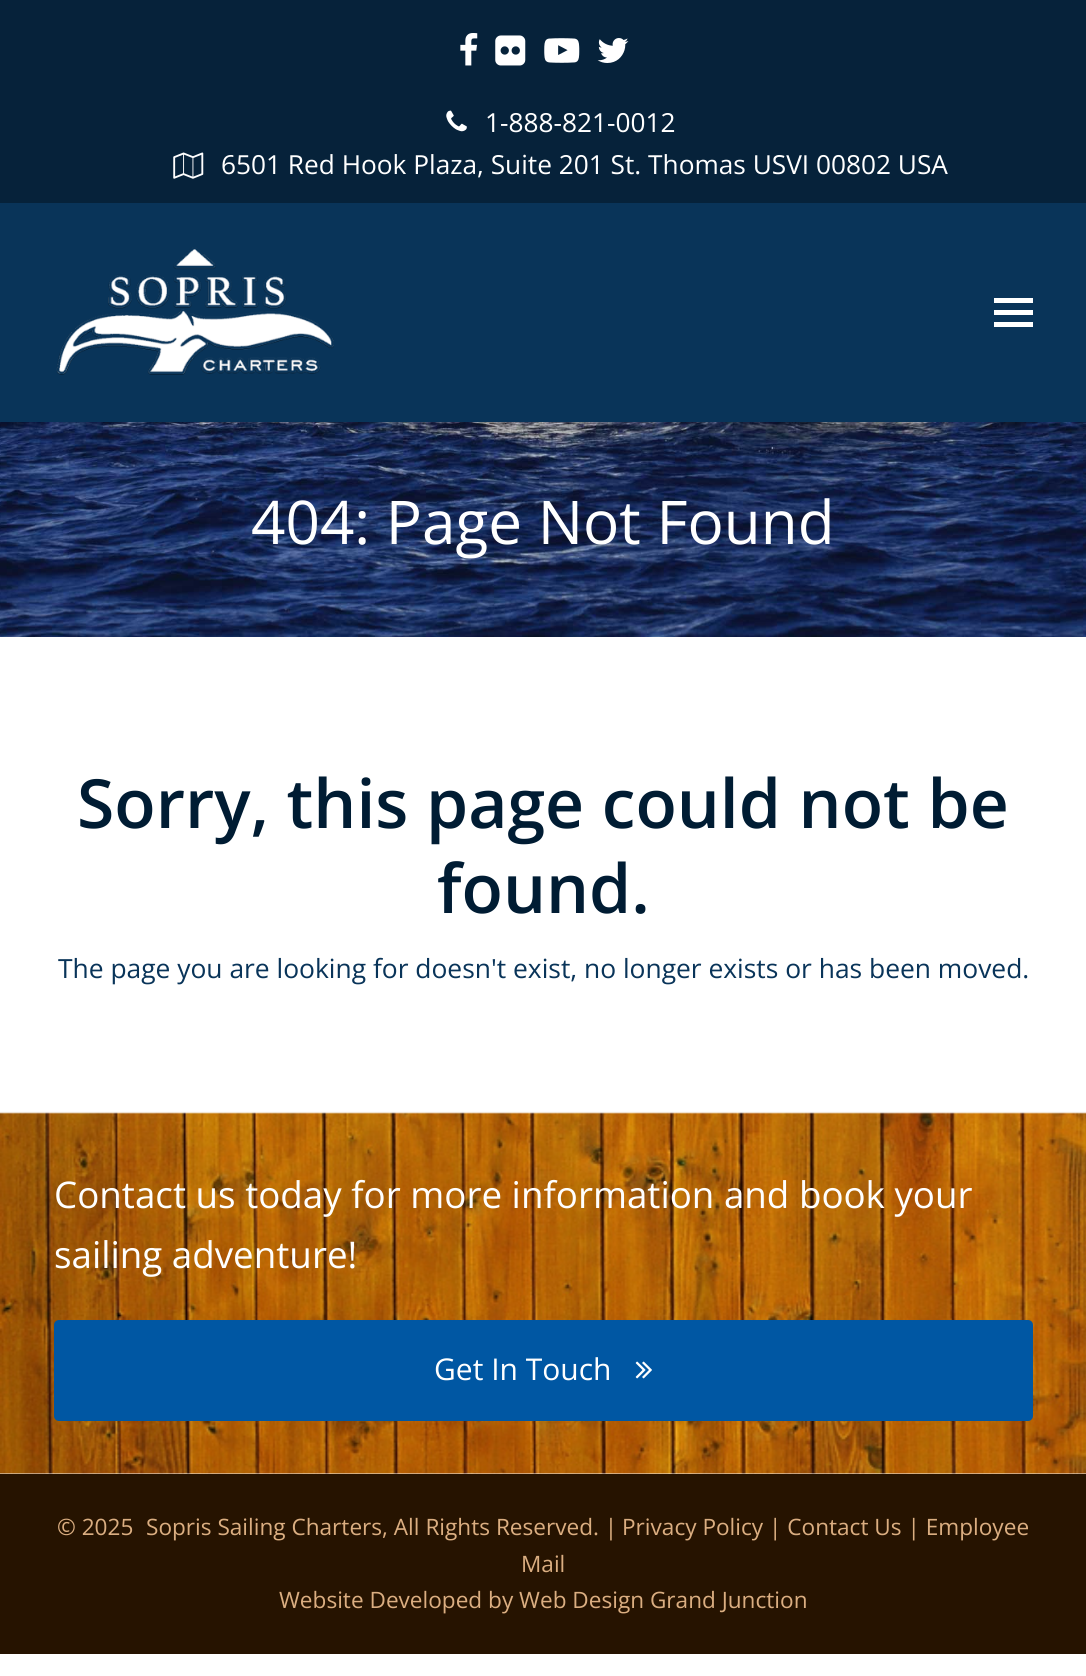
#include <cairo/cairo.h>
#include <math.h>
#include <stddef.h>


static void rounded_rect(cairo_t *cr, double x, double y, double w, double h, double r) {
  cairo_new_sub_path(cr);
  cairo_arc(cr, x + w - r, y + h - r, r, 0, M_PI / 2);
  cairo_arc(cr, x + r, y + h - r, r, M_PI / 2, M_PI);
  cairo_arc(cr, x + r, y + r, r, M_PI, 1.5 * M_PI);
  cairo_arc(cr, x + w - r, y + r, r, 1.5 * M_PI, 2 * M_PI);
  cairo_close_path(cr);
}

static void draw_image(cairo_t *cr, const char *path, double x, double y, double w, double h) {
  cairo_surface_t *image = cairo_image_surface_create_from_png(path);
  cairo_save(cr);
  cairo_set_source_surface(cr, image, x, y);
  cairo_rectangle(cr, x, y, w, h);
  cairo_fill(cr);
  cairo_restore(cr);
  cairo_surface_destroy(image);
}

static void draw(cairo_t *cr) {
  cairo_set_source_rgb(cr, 1, 1, 1);
  cairo_paint(cr);
  cairo_set_source_rgb(cr, 6 / 255.0, 34 / 255.0, 58 / 255.0);
  cairo_rectangle(cr, 0, 0, 1086, 203);
  cairo_fill(cr);
  draw_image(cr, "images/1.png", 460, 33, 18, 33);
  draw_image(cr, "images/2.png", 495, 35, 31, 31);
  draw_image(cr, "images/3.png", 544, 38, 36, 25);
  draw_image(cr, "images/4.png", 597, 38, 32, 25);
  draw_image(cr, "images/5.png", 446, 110, 21, 22);
  draw_image(cr, "images/6.png", 173, 152, 31, 27);
  cairo_set_source_rgb(cr, 9 / 255.0, 52 / 255.0, 89 / 255.0);
  cairo_rectangle(cr, 0, 203, 1086, 219);
  cairo_fill(cr);
  draw_image(cr, "images/7.png", 56, 247, 278, 128);
  cairo_set_source_rgb(cr, 1, 1, 1);
  cairo_rectangle(cr, 994, 310, 39, 5);
  cairo_fill(cr);
  cairo_rectangle(cr, 994, 298, 39, 5);
  cairo_fill(cr);
  cairo_rectangle(cr, 994, 322, 39, 5);
  cairo_fill(cr);
  draw_image(cr, "images/8.png", 0, 422, 1086, 215);
  cairo_set_source_rgb(cr, 247 / 255.0, 247 / 255.0, 247 / 255.0);
  cairo_rectangle(cr, 0, 1111, 1086, 363);
  cairo_fill(cr);
  draw_image(cr, "images/9.png", 0, 1111, 1086, 363);
  cairo_set_source_rgb(cr, 0, 87 / 255.0, 163 / 255.0);
  rounded_rect(cr, 54, 1320, 979, 101, 5);
  cairo_fill(cr);
  draw_image(cr, "images/10.png", 635, 1361, 17, 18);
  cairo_set_source_rgb(cr, 38 / 255.0, 19 / 255.0, 0);
  cairo_rectangle(cr, 0, 1474, 1086, 180);
  cairo_fill(cr);
  cairo_select_font_face(cr, "Open Sans", CAIRO_FONT_SLANT_NORMAL, CAIRO_FONT_WEIGHT_NORMAL);
  cairo_set_font_size(cr, 26.25);
  cairo_set_source_rgb(cr, 1, 1, 1);
  cairo_move_to(cr, 485, 132);
  cairo_show_text(cr, "1-888-821-0012");
  cairo_move_to(cr, 221, 174);
  cairo_show_text(cr, "6501 Red Hook Plaza, Suite 201 St. Thomas USVI 00802 USA");
  cairo_set_font_size(cr, 60.25);
  cairo_move_to(cr, 251, 544);
  cairo_show_text(cr, "404: Page Not Found");
  cairo_select_font_face(cr, "Open Sans SemiBold", CAIRO_FONT_SLANT_NORMAL, CAIRO_FONT_WEIGHT_NORMAL);
  cairo_set_font_size(cr, 67.8);
  cairo_set_source_rgb(cr, 0, 28 / 255.0, 51 / 255.0);
  cairo_move_to(cr, 77, 828);
  cairo_show_text(cr, "Sorry, this page could not be");
  cairo_move_to(cr, 437, 913);
  cairo_show_text(cr, "found.");
  cairo_select_font_face(cr, "Open Sans", CAIRO_FONT_SLANT_NORMAL, CAIRO_FONT_WEIGHT_NORMAL);
  cairo_set_font_size(cr, 26.4);
  cairo_set_source_rgb(cr, 9 / 255.0, 52 / 255.0, 89 / 255.0);
  cairo_move_to(cr, 58, 978);
  cairo_show_text(cr, "The page you are looking for doesn't exist, no longer exists or has been moved.");
  cairo_set_font_size(cr, 36.75);
  cairo_set_source_rgb(cr, 1, 1, 1);
  cairo_move_to(cr, 54, 1208);
  cairo_show_text(cr, "Contact us today for more information and book your");
  cairo_move_to(cr, 54, 1268);
  cairo_show_text(cr, "sailing adventure!");
  cairo_set_font_size(cr, 30);
  cairo_move_to(cr, 434, 1380);
  cairo_show_text(cr, "Get In Touch");
  cairo_set_font_size(cr, 22.6);
  cairo_set_source_rgb(cr, 219 / 255.0, 174 / 255.0, 129 / 255.0);
  cairo_move_to(cr, 57, 1535);
  cairo_show_text(cr, "© 2025");
  cairo_move_to(cr, 146, 1535);
  cairo_show_text(cr, "Sopris Sailing Charters, All Rights Reserved. |");
  cairo_move_to(cr, 622, 1535);
  cairo_show_text(cr, "Privacy Policy | Contact Us | Employee");
  cairo_move_to(cr, 521, 1572);
  cairo_show_text(cr, "Mail");
  cairo_move_to(cr, 279, 1608);
  cairo_show_text(cr, "Website Developed by Web Design Grand Junction");
}

int main(void) {
  cairo_surface_t *surface = cairo_image_surface_create(CAIRO_FORMAT_RGB24, 1086, 1676);
  cairo_t *cr = cairo_create(surface);
  cairo_font_options_t *options = cairo_font_options_create();
  cairo_font_options_set_hint_metrics(options, CAIRO_HINT_METRICS_OFF);
  cairo_font_options_set_hint_style(options, CAIRO_HINT_STYLE_NONE);
  cairo_set_font_options(cr, options);
  cairo_set_miter_limit(cr, 4);
  draw(cr);
  cairo_surface_write_to_png(surface, "out.png");
  cairo_font_options_destroy(options);
  cairo_destroy(cr);
  cairo_surface_destroy(surface);
  return 0;
}
